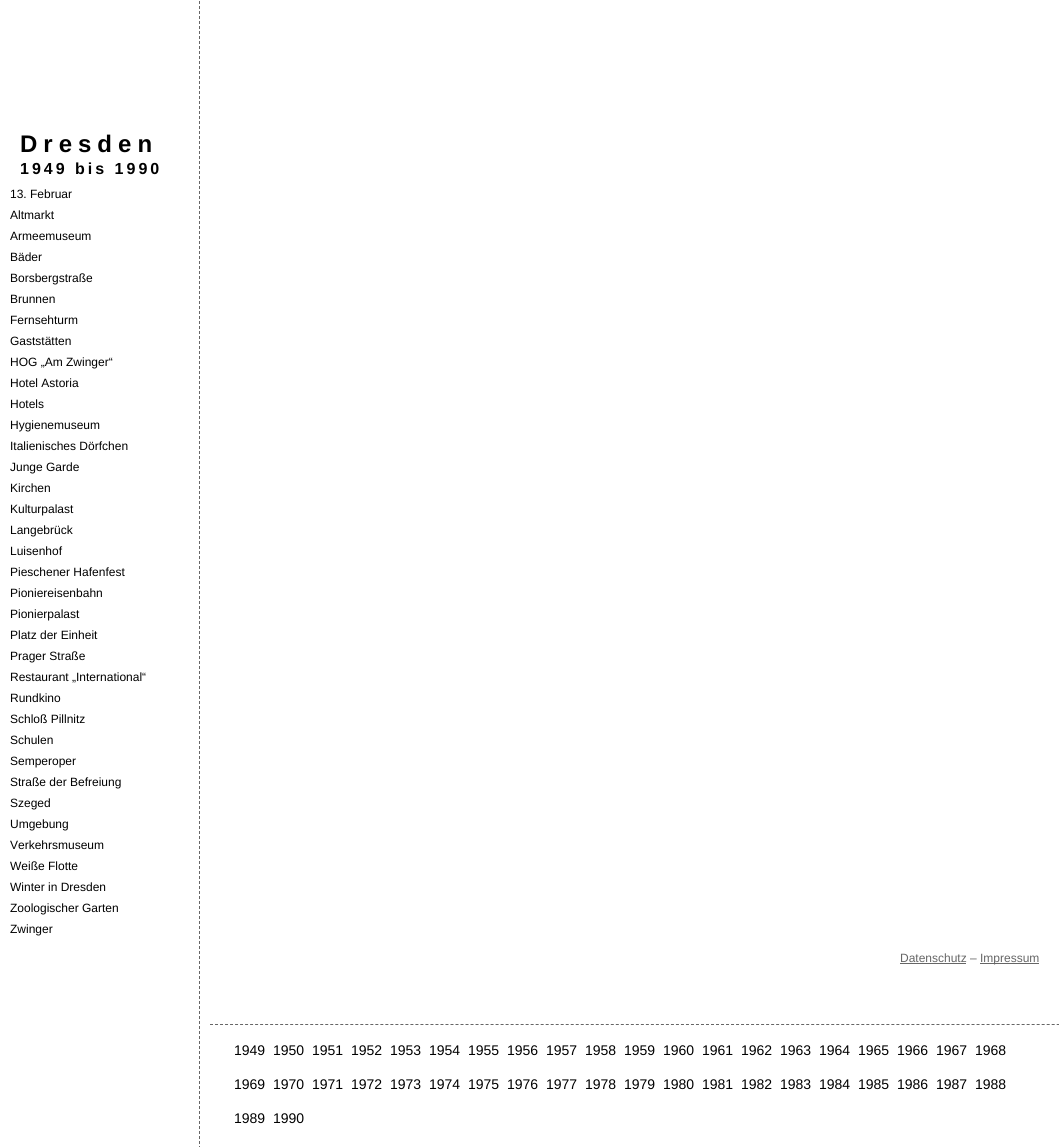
#include <cairo/cairo.h>
#include <math.h>
#include <stddef.h>


static void draw_spaced(cairo_t *cr, double x, double y, const char *s, double letter, double word) {
  cairo_move_to(cr, x, y);
  while (*s) {
    char ch[5] = {0};
    int n = 0;
    do ch[n++] = *s++; while ((*s & 0xC0) == 0x80);
    cairo_show_text(cr, ch);
    cairo_rel_move_to(cr, letter + word * (*ch == ' '), 0);
  }
}

static void draw(cairo_t *cr) {
  cairo_set_source_rgb(cr, 1, 1, 1);
  cairo_paint(cr);
  cairo_new_path(cr);
  cairo_move_to(cr, 199.5, -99);
  cairo_line_to(cr, 199.5, 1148);
  cairo_set_source_rgb(cr, 102 / 255.0, 102 / 255.0, 102 / 255.0);
  cairo_set_line_width(cr, 1);
  cairo_set_dash(cr, (double[]){3, 2}, 2, 0);
  cairo_stroke(cr);
  cairo_rectangle(cr, 900, 963, 66, 1);
  cairo_fill(cr);
  cairo_rectangle(cr, 980, 963, 59, 1);
  cairo_fill(cr);
  cairo_new_path(cr);
  cairo_move_to(cr, 210, 1024.5);
  cairo_line_to(cr, 1059, 1024.5);
  cairo_set_dash(cr, (double[]){3, 2.01}, 2, 0);
  cairo_stroke(cr);
  cairo_select_font_face(cr, "Liberation Sans", CAIRO_FONT_SLANT_NORMAL, CAIRO_FONT_WEIGHT_BOLD);
  cairo_set_font_size(cr, 24);
  cairo_set_source_rgb(cr, 0, 0, 0);
  draw_spaced(cr, 20, 152, "Dresden", 6, 0);
  cairo_set_font_size(cr, 16);
  draw_spaced(cr, 20, 174, "1949 bis 1990", 3, 0);
  cairo_select_font_face(cr, "Liberation Sans", CAIRO_FONT_SLANT_NORMAL, CAIRO_FONT_WEIGHT_NORMAL);
  cairo_set_font_size(cr, 12);
  cairo_move_to(cr, 10, 198);
  cairo_show_text(cr, "13. Februar");
  cairo_move_to(cr, 10, 219);
  cairo_show_text(cr, "Altmarkt");
  cairo_move_to(cr, 10, 240);
  cairo_show_text(cr, "Armeemuseum");
  cairo_move_to(cr, 10, 261);
  cairo_show_text(cr, "Bäder");
  cairo_move_to(cr, 10, 282);
  cairo_show_text(cr, "Borsbergstraße");
  cairo_move_to(cr, 10, 303);
  cairo_show_text(cr, "Brunnen");
  cairo_move_to(cr, 10, 324);
  cairo_show_text(cr, "Fernsehturm");
  cairo_move_to(cr, 10, 345);
  cairo_show_text(cr, "Gaststätten");
  cairo_move_to(cr, 10, 366);
  cairo_show_text(cr, "HOG „Am Zwinger“");
  cairo_move_to(cr, 10, 387);
  cairo_show_text(cr, "Hotel Astoria");
  cairo_move_to(cr, 10, 408);
  cairo_show_text(cr, "Hotels");
  cairo_move_to(cr, 10, 429);
  cairo_show_text(cr, "Hygienemuseum");
  cairo_move_to(cr, 10, 450);
  cairo_show_text(cr, "Italienisches Dörfchen");
  cairo_move_to(cr, 10, 471);
  cairo_show_text(cr, "Junge Garde");
  cairo_move_to(cr, 10, 492);
  cairo_show_text(cr, "Kirchen");
  cairo_move_to(cr, 10, 513);
  cairo_show_text(cr, "Kulturpalast");
  cairo_move_to(cr, 10, 534);
  cairo_show_text(cr, "Langebrück");
  cairo_move_to(cr, 10, 555);
  cairo_show_text(cr, "Luisenhof");
  cairo_move_to(cr, 10, 576);
  cairo_show_text(cr, "Pieschener Hafenfest");
  cairo_move_to(cr, 10, 597);
  cairo_show_text(cr, "Pioniereisenbahn");
  cairo_move_to(cr, 10, 618);
  cairo_show_text(cr, "Pionierpalast");
  cairo_move_to(cr, 10, 639);
  cairo_show_text(cr, "Platz der Einheit");
  cairo_move_to(cr, 10, 660);
  cairo_show_text(cr, "Prager Straße");
  cairo_move_to(cr, 10, 681);
  cairo_show_text(cr, "Restaurant „International“");
  cairo_move_to(cr, 10, 702);
  cairo_show_text(cr, "Rundkino");
  cairo_move_to(cr, 10, 723);
  cairo_show_text(cr, "Schloß Pillnitz");
  cairo_move_to(cr, 10, 744);
  cairo_show_text(cr, "Schulen");
  cairo_move_to(cr, 10, 765);
  cairo_show_text(cr, "Semperoper");
  cairo_move_to(cr, 10, 786);
  cairo_show_text(cr, "Straße der Befreiung");
  cairo_move_to(cr, 10, 807);
  cairo_show_text(cr, "Szeged");
  cairo_move_to(cr, 10, 828);
  cairo_show_text(cr, "Umgebung");
  cairo_move_to(cr, 10, 849);
  cairo_show_text(cr, "Verkehrsmuseum");
  cairo_move_to(cr, 10, 870);
  cairo_show_text(cr, "Weiße Flotte");
  cairo_move_to(cr, 10, 891);
  cairo_show_text(cr, "Winter in Dresden");
  cairo_move_to(cr, 10, 912);
  cairo_show_text(cr, "Zoologischer Garten");
  cairo_move_to(cr, 10, 933);
  cairo_show_text(cr, "Zwinger");
  cairo_set_source_rgb(cr, 102 / 255.0, 102 / 255.0, 102 / 255.0);
  cairo_move_to(cr, 900, 962);
  cairo_show_text(cr, "Datenschutz –");
  cairo_move_to(cr, 980, 962);
  cairo_show_text(cr, "Impressum");
  cairo_set_font_size(cr, 14);
  cairo_set_source_rgb(cr, 0, 0, 0);
  cairo_move_to(cr, 234, 1055);
  cairo_show_text(cr, "1949");
  cairo_move_to(cr, 273, 1055);
  cairo_show_text(cr, "1950");
  cairo_move_to(cr, 312, 1055);
  cairo_show_text(cr, "1951");
  cairo_move_to(cr, 351, 1055);
  cairo_show_text(cr, "1952");
  cairo_move_to(cr, 390, 1055);
  cairo_show_text(cr, "1953");
  cairo_move_to(cr, 429, 1055);
  cairo_show_text(cr, "1954");
  cairo_move_to(cr, 468, 1055);
  cairo_show_text(cr, "1955");
  cairo_move_to(cr, 507, 1055);
  cairo_show_text(cr, "1956");
  cairo_move_to(cr, 546, 1055);
  cairo_show_text(cr, "1957");
  cairo_move_to(cr, 585, 1055);
  cairo_show_text(cr, "1958");
  cairo_move_to(cr, 624, 1055);
  cairo_show_text(cr, "1959");
  cairo_move_to(cr, 663, 1055);
  cairo_show_text(cr, "1960");
  cairo_move_to(cr, 702, 1055);
  cairo_show_text(cr, "1961");
  cairo_move_to(cr, 741, 1055);
  cairo_show_text(cr, "1962");
  cairo_move_to(cr, 780, 1055);
  cairo_show_text(cr, "1963");
  cairo_move_to(cr, 819, 1055);
  cairo_show_text(cr, "1964");
  cairo_move_to(cr, 858, 1055);
  cairo_show_text(cr, "1965");
  cairo_move_to(cr, 897, 1055);
  cairo_show_text(cr, "1966");
  cairo_move_to(cr, 936, 1055);
  cairo_show_text(cr, "1967");
  cairo_move_to(cr, 975, 1055);
  cairo_show_text(cr, "1968");
  cairo_move_to(cr, 234, 1089);
  cairo_show_text(cr, "1969");
  cairo_move_to(cr, 273, 1089);
  cairo_show_text(cr, "1970");
  cairo_move_to(cr, 312, 1089);
  cairo_show_text(cr, "1971");
  cairo_move_to(cr, 351, 1089);
  cairo_show_text(cr, "1972");
  cairo_move_to(cr, 390, 1089);
  cairo_show_text(cr, "1973");
  cairo_move_to(cr, 429, 1089);
  cairo_show_text(cr, "1974");
  cairo_move_to(cr, 468, 1089);
  cairo_show_text(cr, "1975");
  cairo_move_to(cr, 507, 1089);
  cairo_show_text(cr, "1976");
  cairo_move_to(cr, 546, 1089);
  cairo_show_text(cr, "1977");
  cairo_move_to(cr, 585, 1089);
  cairo_show_text(cr, "1978");
  cairo_move_to(cr, 624, 1089);
  cairo_show_text(cr, "1979");
  cairo_move_to(cr, 663, 1089);
  cairo_show_text(cr, "1980");
  cairo_move_to(cr, 702, 1089);
  cairo_show_text(cr, "1981");
  cairo_move_to(cr, 741, 1089);
  cairo_show_text(cr, "1982");
  cairo_move_to(cr, 780, 1089);
  cairo_show_text(cr, "1983");
  cairo_move_to(cr, 819, 1089);
  cairo_show_text(cr, "1984");
  cairo_move_to(cr, 858, 1089);
  cairo_show_text(cr, "1985");
  cairo_move_to(cr, 897, 1089);
  cairo_show_text(cr, "1986");
  cairo_move_to(cr, 936, 1089);
  cairo_show_text(cr, "1987");
  cairo_move_to(cr, 975, 1089);
  cairo_show_text(cr, "1988");
  cairo_move_to(cr, 234, 1123);
  cairo_show_text(cr, "1989");
  cairo_move_to(cr, 273, 1123);
  cairo_show_text(cr, "1990");
}

int main(void) {
  cairo_surface_t *surface = cairo_image_surface_create(CAIRO_FORMAT_RGB24, 1059, 1147);
  cairo_t *cr = cairo_create(surface);
  cairo_font_options_t *options = cairo_font_options_create();
  cairo_font_options_set_hint_metrics(options, CAIRO_HINT_METRICS_OFF);
  cairo_font_options_set_hint_style(options, CAIRO_HINT_STYLE_NONE);
  cairo_set_font_options(cr, options);
  cairo_set_miter_limit(cr, 4);
  draw(cr);
  cairo_surface_write_to_png(surface, "out.png");
  cairo_font_options_destroy(options);
  cairo_destroy(cr);
  cairo_surface_destroy(surface);
  return 0;
}
